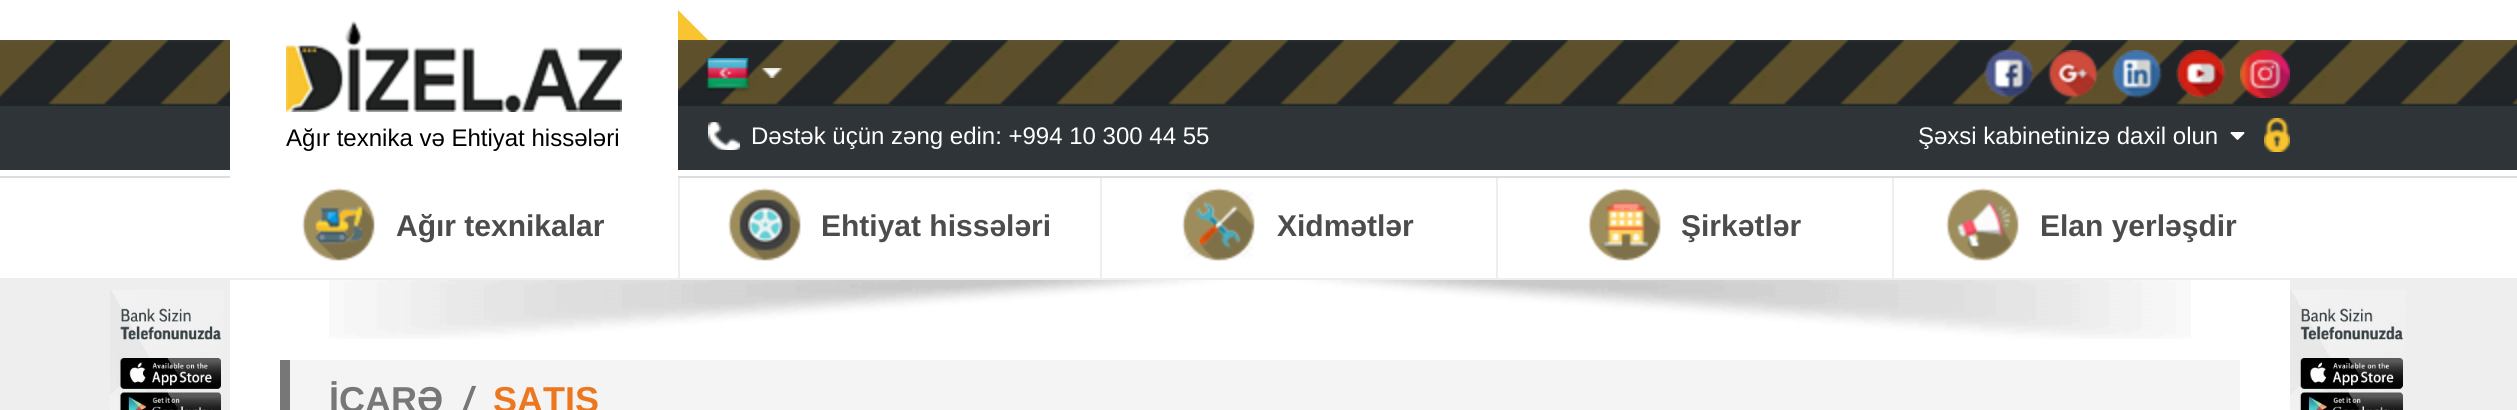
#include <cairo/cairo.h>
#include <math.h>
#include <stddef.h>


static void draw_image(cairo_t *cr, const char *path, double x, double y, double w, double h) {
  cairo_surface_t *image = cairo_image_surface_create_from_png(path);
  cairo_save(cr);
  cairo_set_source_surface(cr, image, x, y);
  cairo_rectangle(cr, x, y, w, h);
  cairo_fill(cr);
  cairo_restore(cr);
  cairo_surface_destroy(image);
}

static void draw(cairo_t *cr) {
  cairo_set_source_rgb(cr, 1, 1, 1);
  cairo_paint(cr);
  cairo_set_source_rgb(cr, 46 / 255.0, 52 / 255.0, 56 / 255.0);
  cairo_rectangle(cr, 0, 40, 2517, 130);
  cairo_fill(cr);
  draw_image(cr, "images/1.png", 0, 40, 2517, 66);
  cairo_set_source_rgb(cr, 1, 1, 1);
  cairo_rectangle(cr, 230, 40, 448, 130);
  cairo_fill(cr);
  cairo_set_source_rgb(cr, 248 / 255.0, 196 / 255.0, 47 / 255.0);
  cairo_new_path(cr);
  cairo_move_to(cr, 708, 40);
  cairo_line_to(cr, 678, 40);
  cairo_line_to(cr, 678, 10);
  cairo_close_path(cr);
  cairo_fill(cr);
  draw_image(cr, "images/2.png", 286, 20, 336, 92);
  draw_image(cr, "images/3.png", 706, 58, 44, 34);
  draw_image(cr, "images/4.png", 762, 68, 20, 10);
  draw_image(cr, "images/5.png", 1984, 50, 50, 48);
  draw_image(cr, "images/6.png", 2048, 50, 50, 48);
  draw_image(cr, "images/7.png", 2112, 50, 50, 48);
  draw_image(cr, "images/8.png", 2176, 50, 50, 48);
  draw_image(cr, "images/9.png", 2240, 50, 50, 48);
  draw_image(cr, "images/10.png", 708, 122, 32, 28);
  draw_image(cr, "images/11.png", 2264, 118, 26, 34);
  draw_image(cr, "images/12.png", 2230, 132, 15, 8);
  cairo_set_source_rgb(cr, 221 / 255.0, 221 / 255.0, 221 / 255.0);
  cairo_rectangle(cr, 0, 176, 2517, 2);
  cairo_fill(cr);
  cairo_set_source_rgb(cr, 238 / 255.0, 238 / 255.0, 238 / 255.0);
  cairo_rectangle(cr, 0, 278, 2517, 2);
  cairo_fill(cr);
  cairo_rectangle(cr, 678, 178, 2, 102);
  cairo_fill(cr);
  cairo_set_source_rgb(cr, 1, 1, 1);
  cairo_rectangle(cr, 230, 176, 448, 2);
  cairo_fill(cr);
  draw_image(cr, "images/13.png", 302, 188, 73, 73);
  cairo_set_source_rgb(cr, 238 / 255.0, 238 / 255.0, 238 / 255.0);
  cairo_rectangle(cr, 1100, 178, 2, 102);
  cairo_fill(cr);
  draw_image(cr, "images/14.png", 728, 188, 73, 73);
  cairo_rectangle(cr, 1496, 178, 2, 102);
  cairo_fill(cr);
  draw_image(cr, "images/15.png", 1182, 188, 73, 73);
  cairo_rectangle(cr, 1892, 178, 2, 102);
  cairo_fill(cr);
  draw_image(cr, "images/16.png", 1588, 188, 73, 73);
  draw_image(cr, "images/17.png", 1946, 188, 73, 73);
  draw_image(cr, "images/18.png", 329, 280, 1862, 59);
  cairo_rectangle(cr, 0, 280, 230, 130);
  cairo_fill(cr);
  draw_image(cr, "images/19.png", 110, 290, 114, 120);
  cairo_set_source_rgb(cr, 244 / 255.0, 244 / 255.0, 244 / 255.0);
  cairo_rectangle(cr, 290, 360, 1950, 50);
  cairo_fill(cr);
  cairo_set_source_rgb(cr, 119 / 255.0, 119 / 255.0, 119 / 255.0);
  cairo_rectangle(cr, 280, 360, 10, 50);
  cairo_fill(cr);
  cairo_set_source_rgb(cr, 238 / 255.0, 238 / 255.0, 238 / 255.0);
  cairo_rectangle(cr, 2290, 280, 227, 130);
  cairo_fill(cr);
  draw_image(cr, "images/20.png", 2290, 290, 116, 120);
  cairo_select_font_face(cr, "Liberation Sans", CAIRO_FONT_SLANT_NORMAL, CAIRO_FONT_WEIGHT_NORMAL);
  cairo_set_font_size(cr, 24);
  cairo_set_source_rgb(cr, 0, 0, 0);
  cairo_move_to(cr, 286, 146);
  cairo_show_text(cr, "Ağır texnika və Ehtiyat hissələri");
  cairo_set_source_rgb(cr, 1, 1, 1);
  cairo_move_to(cr, 751, 144);
  cairo_show_text(cr, "Dəstək üçün zəng edin: +994 10 300 44 55");
  cairo_move_to(cr, 1918, 144);
  cairo_show_text(cr, "Şəxsi kabinetinizə daxil olun");
  cairo_select_font_face(cr, "Liberation Sans", CAIRO_FONT_SLANT_NORMAL, CAIRO_FONT_WEIGHT_BOLD);
  cairo_set_font_size(cr, 30);
  cairo_set_source_rgb(cr, 76 / 255.0, 76 / 255.0, 76 / 255.0);
  cairo_move_to(cr, 396, 236);
  cairo_show_text(cr, "Ağır texnikalar");
  cairo_move_to(cr, 821, 236);
  cairo_show_text(cr, "Ehtiyat hissələri");
  cairo_move_to(cr, 1277, 236);
  cairo_show_text(cr, "Xidmətlər");
  cairo_move_to(cr, 1681, 236);
  cairo_show_text(cr, "Şirkətlər");
  cairo_move_to(cr, 2040, 236);
  cairo_show_text(cr, "Elan yerləşdir");
  cairo_set_font_size(cr, 36);
  cairo_set_source_rgb(cr, 119 / 255.0, 119 / 255.0, 119 / 255.0);
  cairo_move_to(cr, 329, 412);
  cairo_show_text(cr, "İCARƏ");
  cairo_select_font_face(cr, "Liberation Sans", CAIRO_FONT_SLANT_ITALIC, CAIRO_FONT_WEIGHT_BOLD);
  cairo_move_to(cr, 463, 412);
  cairo_show_text(cr, "/");
  cairo_select_font_face(cr, "Liberation Sans", CAIRO_FONT_SLANT_NORMAL, CAIRO_FONT_WEIGHT_BOLD);
  cairo_set_source_rgb(cr, 237 / 255.0, 119 / 255.0, 31 / 255.0);
  cairo_move_to(cr, 493, 412);
  cairo_show_text(cr, "SATIŞ");
}

int main(void) {
  cairo_surface_t *surface = cairo_image_surface_create(CAIRO_FORMAT_RGB24, 2517, 410);
  cairo_t *cr = cairo_create(surface);
  cairo_font_options_t *options = cairo_font_options_create();
  cairo_font_options_set_hint_metrics(options, CAIRO_HINT_METRICS_OFF);
  cairo_font_options_set_hint_style(options, CAIRO_HINT_STYLE_NONE);
  cairo_set_font_options(cr, options);
  cairo_set_miter_limit(cr, 4);
  draw(cr);
  cairo_surface_write_to_png(surface, "out.png");
  cairo_font_options_destroy(options);
  cairo_destroy(cr);
  cairo_surface_destroy(surface);
  return 0;
}
